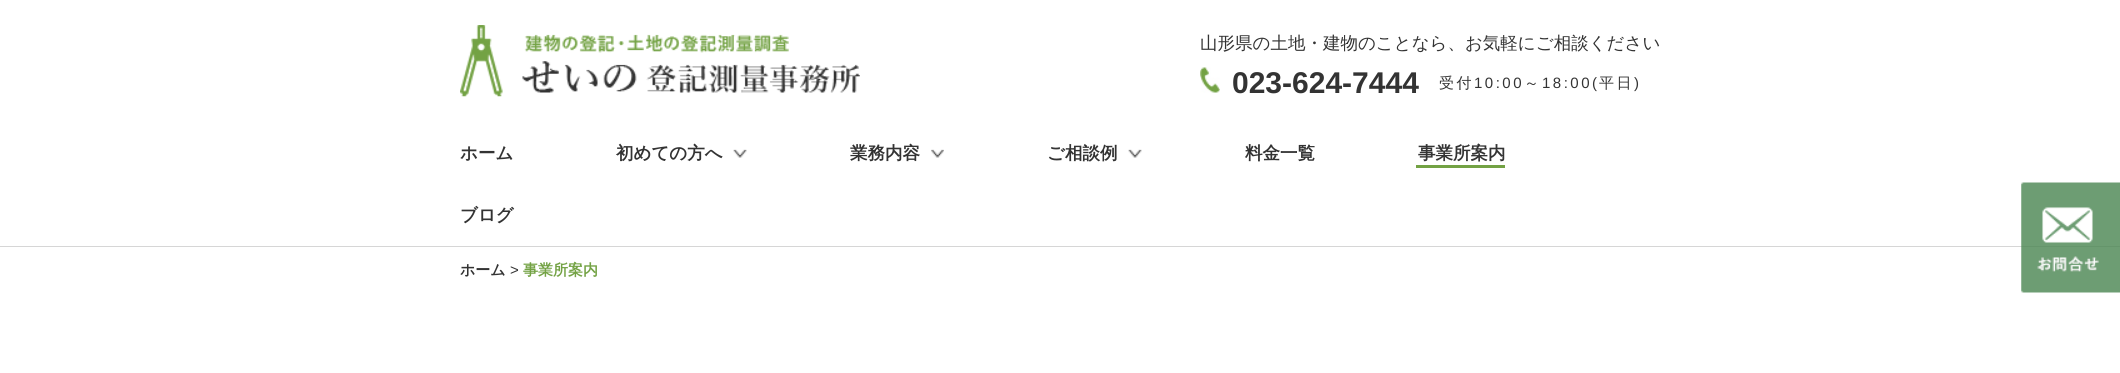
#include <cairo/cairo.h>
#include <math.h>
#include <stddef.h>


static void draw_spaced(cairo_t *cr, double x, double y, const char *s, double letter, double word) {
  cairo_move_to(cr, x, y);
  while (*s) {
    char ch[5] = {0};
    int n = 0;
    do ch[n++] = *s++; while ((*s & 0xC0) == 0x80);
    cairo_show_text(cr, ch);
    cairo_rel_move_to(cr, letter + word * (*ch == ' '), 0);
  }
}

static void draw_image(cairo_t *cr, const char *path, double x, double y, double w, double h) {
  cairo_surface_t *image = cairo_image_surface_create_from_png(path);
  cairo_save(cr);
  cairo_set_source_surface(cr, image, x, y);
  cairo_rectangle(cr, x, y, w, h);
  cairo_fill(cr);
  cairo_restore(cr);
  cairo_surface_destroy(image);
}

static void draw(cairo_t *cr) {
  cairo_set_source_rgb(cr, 1, 1, 1);
  cairo_paint(cr);
  draw_image(cr, "images/1.png", 460, 25, 400, 72);
  draw_image(cr, "images/2.png", 1200, 67, 20, 26);
  cairo_set_source_rgb(cr, 214 / 255.0, 214 / 255.0, 214 / 255.0);
  cairo_rectangle(cr, 0, 246, 2120, 1);
  cairo_fill(cr);
  draw_image(cr, "images/3.png", 733, 149, 14, 9);
  draw_image(cr, "images/4.png", 931, 149, 13, 9);
  draw_image(cr, "images/5.png", 1128, 149, 14, 9);
  cairo_set_source_rgb(cr, 115 / 255.0, 162 / 255.0, 68 / 255.0);
  cairo_rectangle(cr, 1416, 165, 89, 3);
  cairo_fill(cr);
  draw_image(cr, "images/6.png", 2021, 182, 99, 111);
  cairo_select_font_face(cr, "WenQuanYi Zen Hei Medium", CAIRO_FONT_SLANT_NORMAL, CAIRO_FONT_WEIGHT_NORMAL);
  cairo_set_font_size(cr, 17.5);
  cairo_set_source_rgb(cr, 51 / 255.0, 51 / 255.0, 51 / 255.0);
  cairo_move_to(cr, 1200, 49);
  cairo_show_text(cr, "山形県の土地・建物のことなら、お気軽にご相談ください");
  cairo_select_font_face(cr, "Liberation Sans", CAIRO_FONT_SLANT_NORMAL, CAIRO_FONT_WEIGHT_BOLD);
  cairo_set_font_size(cr, 30);
  cairo_move_to(cr, 1232, 93);
  cairo_show_text(cr, "023-624-7444");
  cairo_select_font_face(cr, "WenQuanYi Zen Hei Medium", CAIRO_FONT_SLANT_NORMAL, CAIRO_FONT_WEIGHT_NORMAL);
  cairo_set_font_size(cr, 15);
  draw_spaced(cr, 1439, 88, "受付", 2.5, 0);
  cairo_select_font_face(cr, "Liberation Sans", CAIRO_FONT_SLANT_NORMAL, CAIRO_FONT_WEIGHT_NORMAL);
  draw_spaced(cr, 1474, 88, "10:00", 2.5, 0);
  cairo_select_font_face(cr, "WenQuanYi Zen Hei Medium", CAIRO_FONT_SLANT_NORMAL, CAIRO_FONT_WEIGHT_NORMAL);
  draw_spaced(cr, 1524, 88, "～", 2.5, 0);
  cairo_select_font_face(cr, "Liberation Sans", CAIRO_FONT_SLANT_NORMAL, CAIRO_FONT_WEIGHT_NORMAL);
  draw_spaced(cr, 1542, 88, "18:00(", 2.5, 0);
  cairo_select_font_face(cr, "WenQuanYi Zen Hei Medium", CAIRO_FONT_SLANT_NORMAL, CAIRO_FONT_WEIGHT_NORMAL);
  draw_spaced(cr, 1599, 88, "平日", 2.5, 0);
  cairo_select_font_face(cr, "Liberation Sans", CAIRO_FONT_SLANT_NORMAL, CAIRO_FONT_WEIGHT_NORMAL);
  draw_spaced(cr, 1634, 88, ")", 2.5, 0);
  cairo_select_font_face(cr, "WenQuanYi Zen Hei", CAIRO_FONT_SLANT_NORMAL, CAIRO_FONT_WEIGHT_BOLD);
  cairo_set_font_size(cr, 17.5);
  cairo_move_to(cr, 460, 159);
  cairo_show_text(cr, "ホーム");
  cairo_move_to(cr, 616, 159);
  cairo_show_text(cr, "初めての方へ");
  cairo_move_to(cr, 850, 159);
  cairo_show_text(cr, "業務内容");
  cairo_move_to(cr, 1047, 159);
  cairo_show_text(cr, "ご相談例");
  cairo_move_to(cr, 1245, 159);
  cairo_show_text(cr, "料金一覧");
  cairo_move_to(cr, 1418, 159);
  cairo_show_text(cr, "事業所案内");
  cairo_move_to(cr, 460, 221);
  cairo_show_text(cr, "ブログ");
  cairo_set_font_size(cr, 15);
  cairo_move_to(cr, 460, 275);
  cairo_show_text(cr, "ホーム");
  cairo_select_font_face(cr, "Liberation Sans", CAIRO_FONT_SLANT_NORMAL, CAIRO_FONT_WEIGHT_NORMAL);
  cairo_move_to(cr, 510, 275);
  cairo_show_text(cr, ">");
  cairo_select_font_face(cr, "WenQuanYi Zen Hei", CAIRO_FONT_SLANT_NORMAL, CAIRO_FONT_WEIGHT_BOLD);
  cairo_set_source_rgb(cr, 115 / 255.0, 162 / 255.0, 68 / 255.0);
  cairo_move_to(cr, 523, 275);
  cairo_show_text(cr, "事業所案内");
}

int main(void) {
  cairo_surface_t *surface = cairo_image_surface_create(CAIRO_FORMAT_RGB24, 2120, 373);
  cairo_t *cr = cairo_create(surface);
  cairo_font_options_t *options = cairo_font_options_create();
  cairo_font_options_set_hint_metrics(options, CAIRO_HINT_METRICS_OFF);
  cairo_font_options_set_hint_style(options, CAIRO_HINT_STYLE_NONE);
  cairo_set_font_options(cr, options);
  cairo_set_miter_limit(cr, 4);
  draw(cr);
  cairo_surface_write_to_png(surface, "out.png");
  cairo_font_options_destroy(options);
  cairo_destroy(cr);
  cairo_surface_destroy(surface);
  return 0;
}
